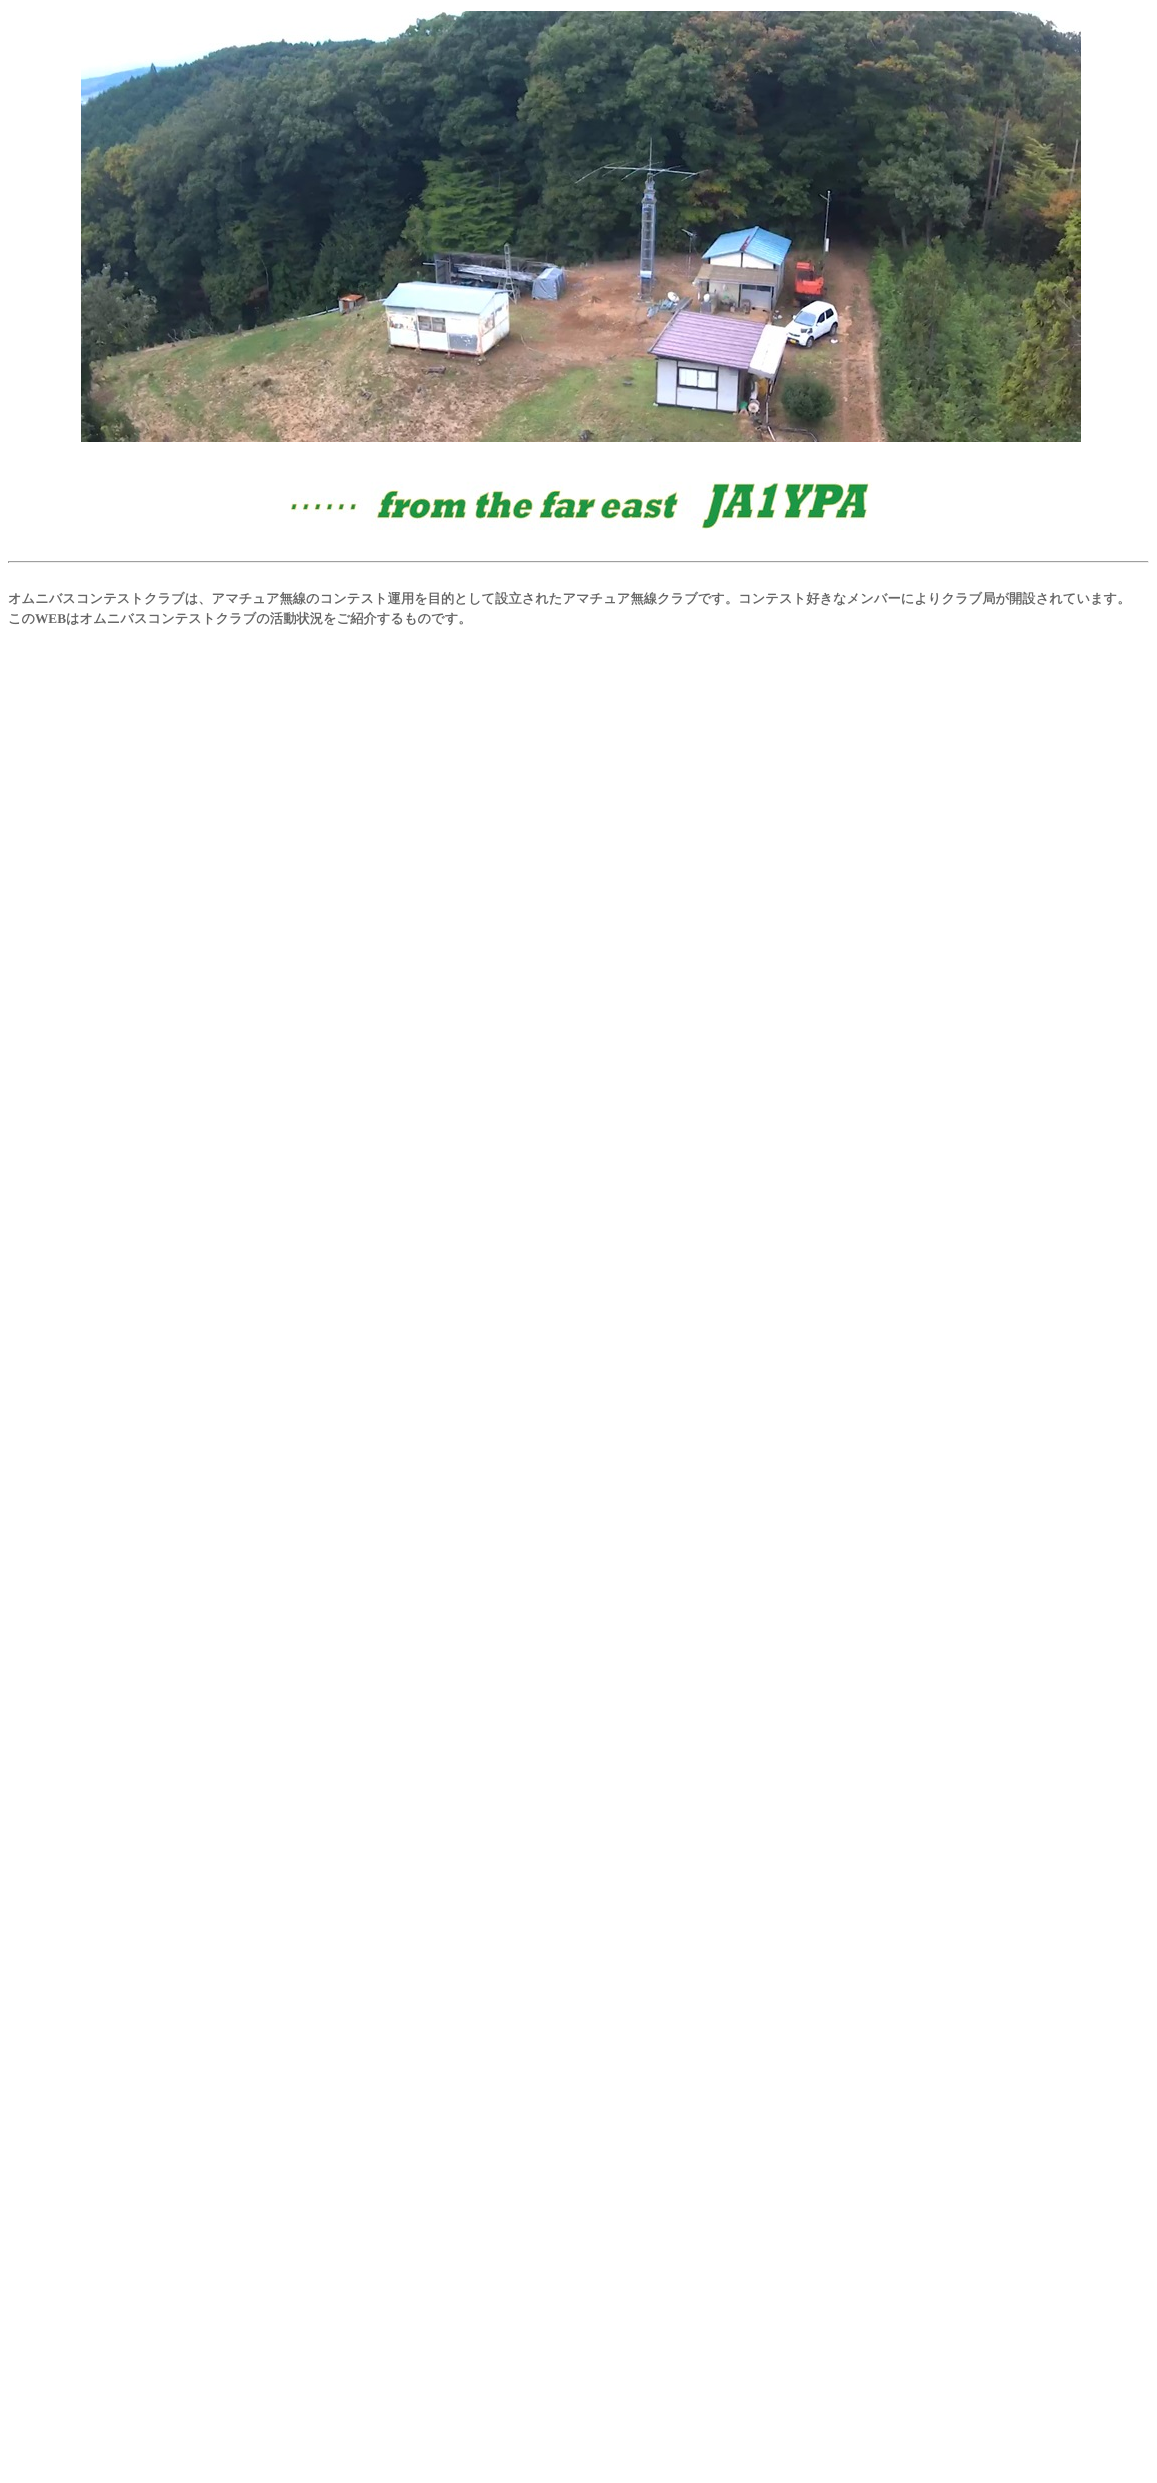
#include <cairo/cairo.h>
#include <math.h>
#include <stddef.h>


static void draw_image(cairo_t *cr, const char *path, double x, double y, double w, double h) {
  cairo_surface_t *image = cairo_image_surface_create_from_png(path);
  cairo_save(cr);
  cairo_set_source_surface(cr, image, x, y);
  cairo_rectangle(cr, x, y, w, h);
  cairo_fill(cr);
  cairo_restore(cr);
  cairo_surface_destroy(image);
}

static void draw(cairo_t *cr) {
  cairo_set_source_rgb(cr, 1, 1, 1);
  cairo_paint(cr);
  draw_image(cr, "images/1.png", 81, 11, 1000, 431);
  draw_image(cr, "images/2.png", 290, 481, 582, 49);
  cairo_set_source_rgb(cr, 159 / 255.0, 159 / 255.0, 159 / 255.0);
  cairo_rectangle(cr, 8, 561, 1141, 1);
  cairo_fill(cr);
  cairo_set_source_rgb(cr, 238 / 255.0, 238 / 255.0, 238 / 255.0);
  cairo_rectangle(cr, 1148, 561, 1, 2);
  cairo_fill(cr);
  cairo_rectangle(cr, 8, 562, 1141, 1);
  cairo_fill(cr);
  cairo_set_source_rgb(cr, 159 / 255.0, 159 / 255.0, 159 / 255.0);
  cairo_rectangle(cr, 8, 561, 1, 2);
  cairo_fill(cr);
  cairo_select_font_face(cr, "WenQuanYi Zen Hei", CAIRO_FONT_SLANT_NORMAL, CAIRO_FONT_WEIGHT_BOLD);
  cairo_set_font_size(cr, 13.28);
  cairo_set_source_rgb(cr, 102 / 255.0, 102 / 255.0, 102 / 255.0);
  cairo_move_to(cr, 8, 603);
  cairo_show_text(cr, "オムニバスコンテストクラブは、アマチュア無線のコンテスト運用を目的として設立されたアマチュア無線クラブです。コンテスト好きなメンバーによりクラブ局が開設されています。");
  cairo_move_to(cr, 8, 623);
  cairo_show_text(cr, "この");
  cairo_select_font_face(cr, "Liberation Serif", CAIRO_FONT_SLANT_NORMAL, CAIRO_FONT_WEIGHT_BOLD);
  cairo_move_to(cr, 35, 623);
  cairo_show_text(cr, "WEB");
  cairo_select_font_face(cr, "WenQuanYi Zen Hei", CAIRO_FONT_SLANT_NORMAL, CAIRO_FONT_WEIGHT_BOLD);
  cairo_move_to(cr, 66, 623);
  cairo_show_text(cr, "はオムニバスコンテストクラブの活動状況をご紹介するものです。");
}

int main(void) {
  cairo_surface_t *surface = cairo_image_surface_create(CAIRO_FORMAT_RGB24, 1157, 2483);
  cairo_t *cr = cairo_create(surface);
  cairo_font_options_t *options = cairo_font_options_create();
  cairo_font_options_set_hint_metrics(options, CAIRO_HINT_METRICS_OFF);
  cairo_font_options_set_hint_style(options, CAIRO_HINT_STYLE_NONE);
  cairo_set_font_options(cr, options);
  cairo_set_miter_limit(cr, 4);
  draw(cr);
  cairo_surface_write_to_png(surface, "out.png");
  cairo_font_options_destroy(options);
  cairo_destroy(cr);
  cairo_surface_destroy(surface);
  return 0;
}
